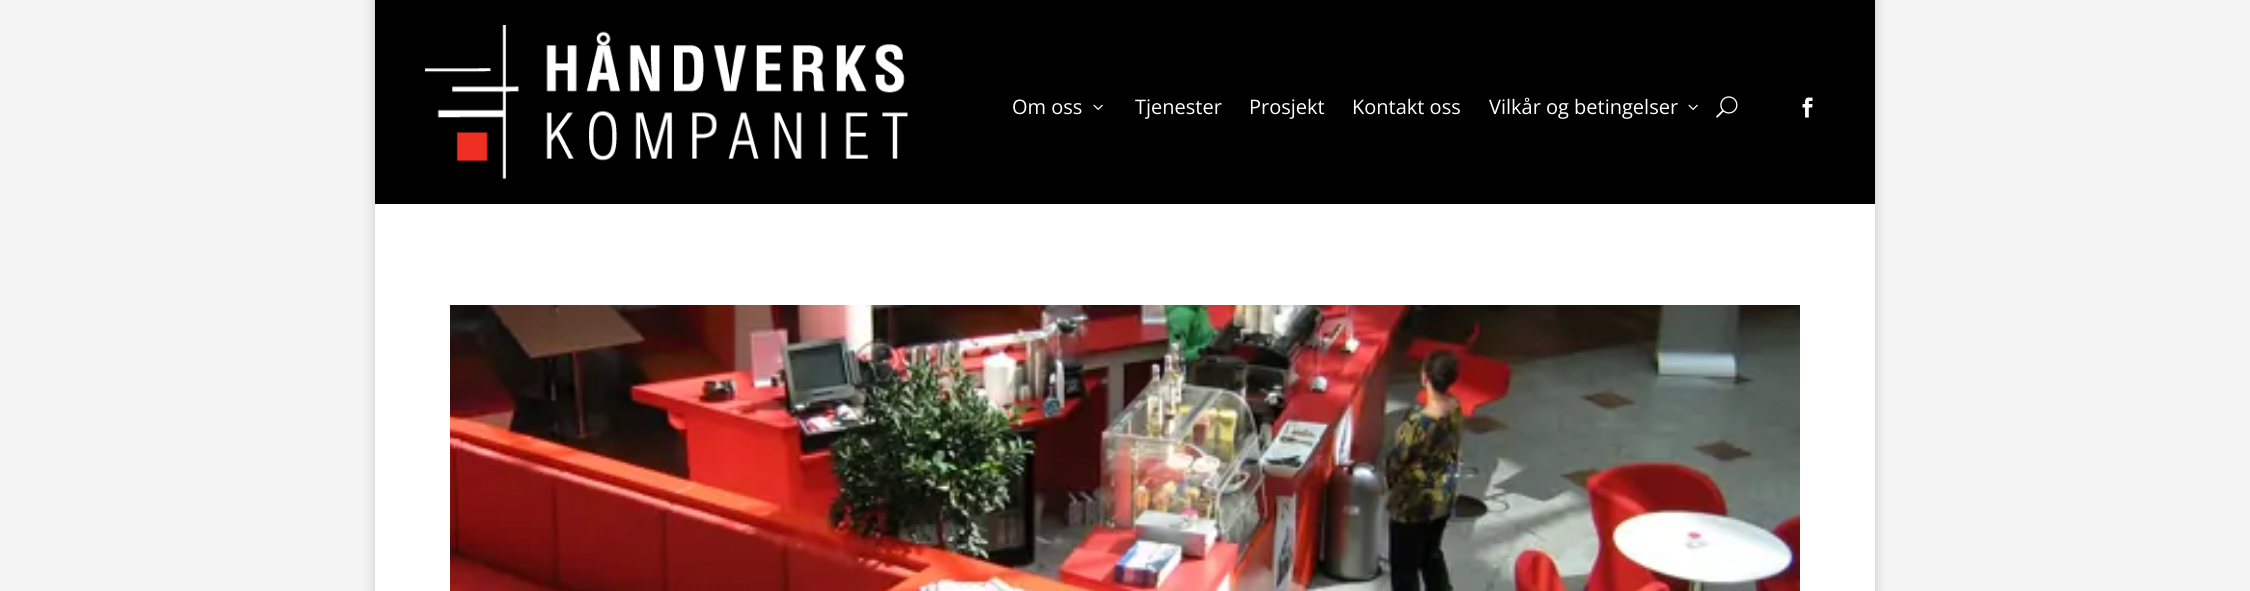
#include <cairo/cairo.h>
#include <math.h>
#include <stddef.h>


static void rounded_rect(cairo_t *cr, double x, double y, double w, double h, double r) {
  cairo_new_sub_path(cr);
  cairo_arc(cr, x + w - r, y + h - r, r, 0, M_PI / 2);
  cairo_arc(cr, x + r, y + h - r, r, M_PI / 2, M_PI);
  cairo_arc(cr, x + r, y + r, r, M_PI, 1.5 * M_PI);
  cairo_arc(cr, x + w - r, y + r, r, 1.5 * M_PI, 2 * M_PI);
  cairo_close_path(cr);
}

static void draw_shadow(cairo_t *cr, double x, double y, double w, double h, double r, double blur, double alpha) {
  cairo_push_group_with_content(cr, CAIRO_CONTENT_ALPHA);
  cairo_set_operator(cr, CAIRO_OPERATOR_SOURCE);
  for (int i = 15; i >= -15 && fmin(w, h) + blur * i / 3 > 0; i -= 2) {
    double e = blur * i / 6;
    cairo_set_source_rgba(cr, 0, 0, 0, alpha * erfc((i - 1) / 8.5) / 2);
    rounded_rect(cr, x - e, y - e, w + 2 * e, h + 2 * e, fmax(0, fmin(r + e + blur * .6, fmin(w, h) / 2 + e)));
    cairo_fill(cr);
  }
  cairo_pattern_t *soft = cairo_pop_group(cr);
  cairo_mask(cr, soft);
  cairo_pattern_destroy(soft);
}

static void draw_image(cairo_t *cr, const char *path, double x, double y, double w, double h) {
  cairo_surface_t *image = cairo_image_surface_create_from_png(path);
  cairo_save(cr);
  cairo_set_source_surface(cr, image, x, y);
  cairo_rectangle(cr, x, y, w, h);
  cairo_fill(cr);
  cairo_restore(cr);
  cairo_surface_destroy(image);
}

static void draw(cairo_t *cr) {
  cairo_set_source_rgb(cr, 244 / 255.0, 244 / 255.0, 244 / 255.0);
  cairo_paint(cr);
  cairo_set_source_rgb(cr, 0, 0, 0);
  draw_shadow(cr, 375, 0, 1500, 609, 0, 6, 0.2);
  cairo_set_source_rgb(cr, 0, 0, 0);
  cairo_rectangle(cr, 375, 0, 1500, 204);
  cairo_fill(cr);
  draw_image(cr, "images/1.png", 425, 25, 483, 154);
  draw_image(cr, "images/2.png", 1093, 104, 10, 6);
  draw_image(cr, "images/2.png", 1688, 104, 10, 6);
  draw_image(cr, "images/3.png", 1716, 96, 22, 22);
  draw_image(cr, "images/4.png", 1802, 97, 11, 21);
  cairo_set_source_rgb(cr, 1, 1, 1);
  cairo_rectangle(cr, 375, 204, 1500, 387);
  cairo_fill(cr);
  draw_image(cr, "images/5.png", 450, 305, 1350, 286);
  cairo_select_font_face(cr, "Open Sans", CAIRO_FONT_SLANT_NORMAL, CAIRO_FONT_WEIGHT_NORMAL);
  cairo_set_font_size(cr, 20);
  cairo_move_to(cr, 1012, 114);
  cairo_show_text(cr, "Om oss");
  cairo_move_to(cr, 1135, 114);
  cairo_show_text(cr, "Tjenester");
  cairo_move_to(cr, 1249, 114);
  cairo_show_text(cr, "Prosjekt");
  cairo_move_to(cr, 1352, 114);
  cairo_show_text(cr, "Kontakt oss");
  cairo_move_to(cr, 1489, 114);
  cairo_show_text(cr, "Vilkår og betingelser");
}

int main(void) {
  cairo_surface_t *surface = cairo_image_surface_create(CAIRO_FORMAT_RGB24, 2250, 591);
  cairo_t *cr = cairo_create(surface);
  cairo_font_options_t *options = cairo_font_options_create();
  cairo_font_options_set_hint_metrics(options, CAIRO_HINT_METRICS_OFF);
  cairo_font_options_set_hint_style(options, CAIRO_HINT_STYLE_NONE);
  cairo_set_font_options(cr, options);
  cairo_set_miter_limit(cr, 4);
  draw(cr);
  cairo_surface_write_to_png(surface, "out.png");
  cairo_font_options_destroy(options);
  cairo_destroy(cr);
  cairo_surface_destroy(surface);
  return 0;
}
